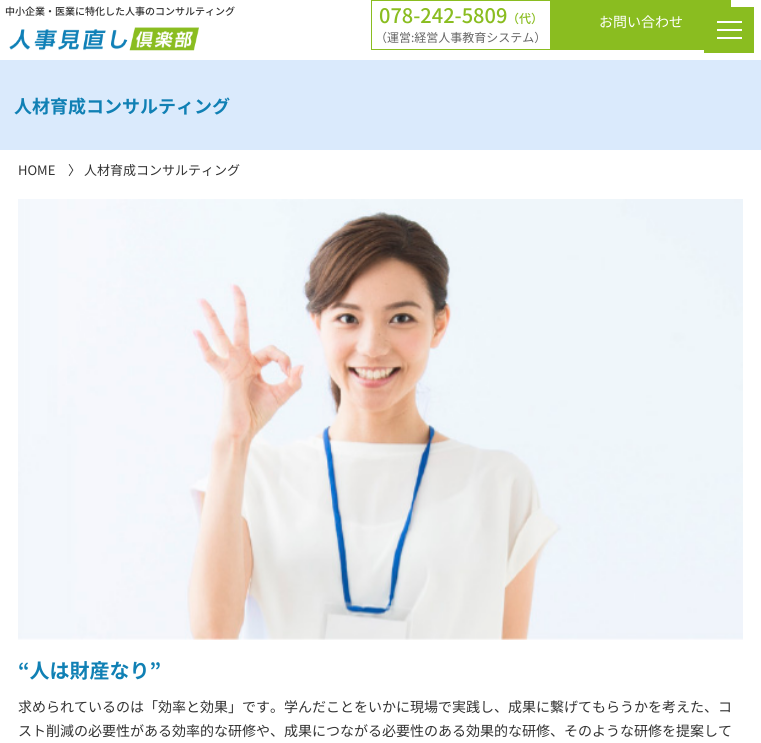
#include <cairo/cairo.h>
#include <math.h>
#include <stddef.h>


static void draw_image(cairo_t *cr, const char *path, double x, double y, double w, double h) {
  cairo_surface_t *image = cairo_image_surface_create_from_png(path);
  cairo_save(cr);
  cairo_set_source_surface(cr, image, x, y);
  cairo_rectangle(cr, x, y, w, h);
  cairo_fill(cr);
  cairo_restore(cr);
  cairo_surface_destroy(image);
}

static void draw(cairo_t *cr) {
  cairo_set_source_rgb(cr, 1, 1, 1);
  cairo_paint(cr);
  cairo_rectangle(cr, 371.5, 0.5, 179, 49);
  cairo_set_source_rgb(cr, 138 / 255.0, 189 / 255.0, 32 / 255.0);
  cairo_set_line_width(cr, 1);
  cairo_stroke(cr);
  cairo_rectangle(cr, 551, 0, 180, 50);
  cairo_fill(cr);
  draw_image(cr, "images/1.png", 9, 27, 190, 24);
  cairo_rectangle(cr, 704, 7, 50, 46);
  cairo_fill(cr);
  cairo_set_source_rgb(cr, 1, 1, 1);
  cairo_rectangle(cr, 717, 29, 25, 2);
  cairo_fill(cr);
  cairo_rectangle(cr, 717, 21, 25, 2);
  cairo_fill(cr);
  cairo_rectangle(cr, 717, 37, 25, 2);
  cairo_fill(cr);
  cairo_set_source_rgb(cr, 218 / 255.0, 234 / 255.0, 252 / 255.0);
  cairo_rectangle(cr, 0, 60, 761, 90);
  cairo_fill(cr);
  draw_image(cr, "images/2.png", 18, 199, 725, 441);
  cairo_select_font_face(cr, "Noto Sans JP Medium", CAIRO_FONT_SLANT_NORMAL, CAIRO_FONT_WEIGHT_NORMAL);
  cairo_set_font_size(cr, 10);
  cairo_set_source_rgb(cr, 51 / 255.0, 51 / 255.0, 51 / 255.0);
  cairo_move_to(cr, 5, 15);
  cairo_show_text(cr, "中小企業・医業に特化した人事のコンサルティング");
  cairo_set_font_size(cr, 20);
  cairo_set_source_rgb(cr, 138 / 255.0, 189 / 255.0, 32 / 255.0);
  cairo_move_to(cr, 379, 23);
  cairo_show_text(cr, "078-242-5809");
  cairo_set_font_size(cr, 12);
  cairo_move_to(cr, 507, 23);
  cairo_show_text(cr, "（代）");
  cairo_select_font_face(cr, "Noto Sans JP", CAIRO_FONT_SLANT_NORMAL, CAIRO_FONT_WEIGHT_NORMAL);
  cairo_set_source_rgb(cr, 102 / 255.0, 102 / 255.0, 102 / 255.0);
  cairo_move_to(cr, 375, 42);
  cairo_show_text(cr, "（運営:経営人事教育システム）");
  cairo_set_font_size(cr, 14);
  cairo_set_source_rgb(cr, 1, 1, 1);
  cairo_move_to(cr, 599, 27);
  cairo_show_text(cr, "お問い合わせ");
  cairo_select_font_face(cr, "Noto Sans JP", CAIRO_FONT_SLANT_NORMAL, CAIRO_FONT_WEIGHT_BOLD);
  cairo_set_font_size(cr, 18);
  cairo_set_source_rgb(cr, 16 / 255.0, 128 / 255.0, 180 / 255.0);
  cairo_move_to(cr, 14, 113);
  cairo_show_text(cr, "人材育成コンサルティング");
  cairo_select_font_face(cr, "Noto Sans JP", CAIRO_FONT_SLANT_NORMAL, CAIRO_FONT_WEIGHT_NORMAL);
  cairo_set_font_size(cr, 13);
  cairo_set_source_rgb(cr, 51 / 255.0, 51 / 255.0, 51 / 255.0);
  cairo_move_to(cr, 18, 175);
  cairo_show_text(cr, "HOME");
  cairo_move_to(cr, 68, 175);
  cairo_show_text(cr, "〉 人材育成コンサルティング");
  cairo_select_font_face(cr, "Noto Sans JP", CAIRO_FONT_SLANT_NORMAL, CAIRO_FONT_WEIGHT_BOLD);
  cairo_set_font_size(cr, 20);
  cairo_set_source_rgb(cr, 16 / 255.0, 128 / 255.0, 180 / 255.0);
  cairo_move_to(cr, 18, 678);
  cairo_show_text(cr, "“人は財産なり”");
  cairo_select_font_face(cr, "Noto Sans JP", CAIRO_FONT_SLANT_NORMAL, CAIRO_FONT_WEIGHT_NORMAL);
  cairo_set_font_size(cr, 14);
  cairo_set_source_rgb(cr, 51 / 255.0, 51 / 255.0, 51 / 255.0);
  cairo_move_to(cr, 18, 712);
  cairo_show_text(cr, "求められているのは「効率と効果」です。学んだことをいかに現場で実践し、成果に繋げてもらうかを考えた、コ");
  cairo_move_to(cr, 18, 736);
  cairo_show_text(cr, "スト削減の必要性がある効率的な研修や、成果につながる必要性のある効果的な研修、そのような研修を提案して");
}

int main(void) {
  cairo_surface_t *surface = cairo_image_surface_create(CAIRO_FORMAT_RGB24, 761, 743);
  cairo_t *cr = cairo_create(surface);
  cairo_font_options_t *options = cairo_font_options_create();
  cairo_font_options_set_hint_metrics(options, CAIRO_HINT_METRICS_OFF);
  cairo_font_options_set_hint_style(options, CAIRO_HINT_STYLE_NONE);
  cairo_set_font_options(cr, options);
  cairo_set_miter_limit(cr, 4);
  draw(cr);
  cairo_surface_write_to_png(surface, "out.png");
  cairo_font_options_destroy(options);
  cairo_destroy(cr);
  cairo_surface_destroy(surface);
  return 0;
}
